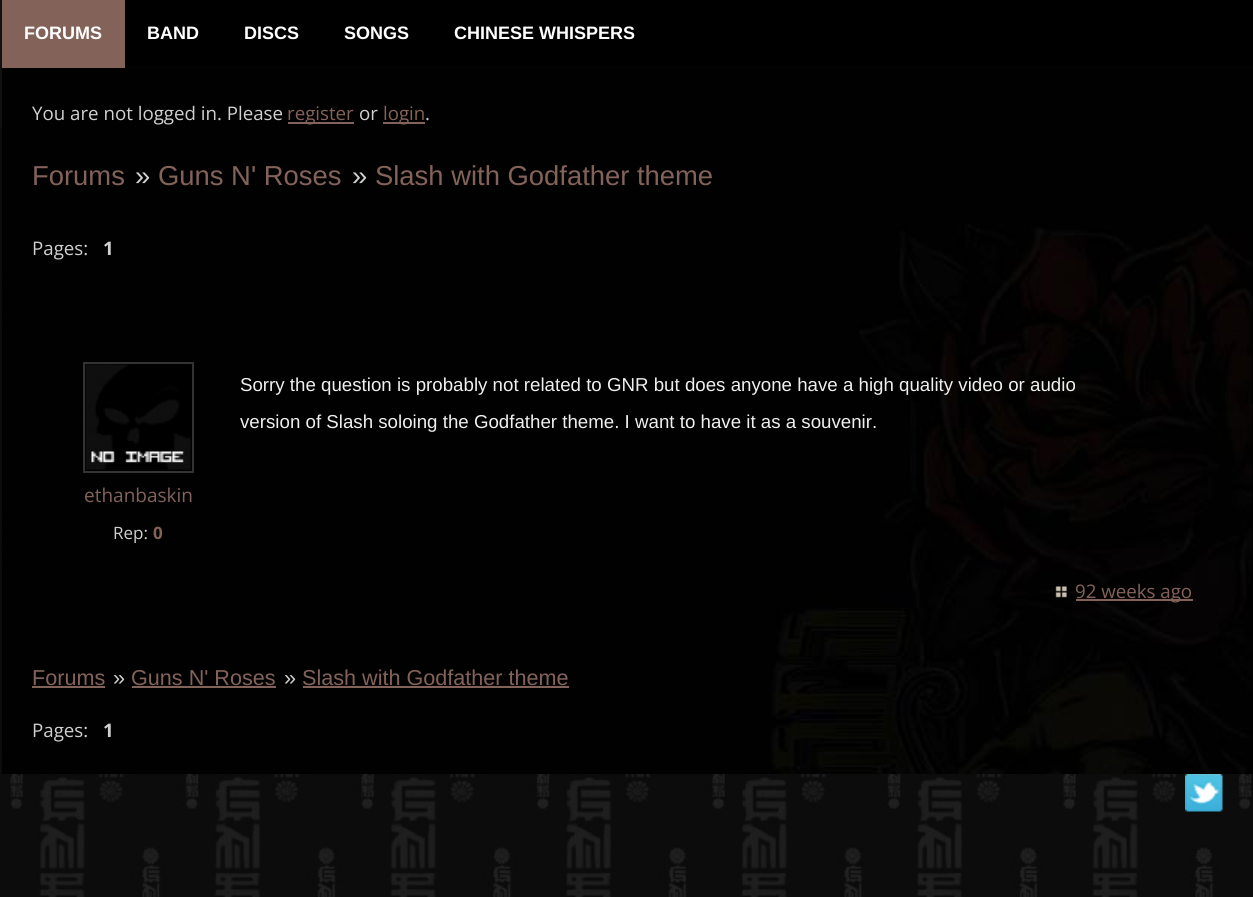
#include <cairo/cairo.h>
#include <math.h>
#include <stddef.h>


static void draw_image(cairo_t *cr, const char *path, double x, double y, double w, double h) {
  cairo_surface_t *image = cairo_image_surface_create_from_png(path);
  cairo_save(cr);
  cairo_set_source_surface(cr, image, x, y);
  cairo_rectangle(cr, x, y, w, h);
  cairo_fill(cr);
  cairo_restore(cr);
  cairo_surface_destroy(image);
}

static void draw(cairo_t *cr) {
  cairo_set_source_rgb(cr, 1, 1, 1);
  cairo_paint(cr);
  draw_image(cr, "images/1.png", 0, 128, 1253, 769);
  cairo_set_source_rgb(cr, 17 / 255.0, 17 / 255.0, 17 / 255.0);
  cairo_rectangle(cr, 0, 0, 2, 128);
  cairo_fill(cr);
  cairo_set_source_rgb(cr, 0, 0, 0);
  cairo_rectangle(cr, 125, 0, 1128, 66);
  cairo_fill(cr);
  cairo_set_source_rgb(cr, 3 / 255.0, 3 / 255.0, 3 / 255.0);
  cairo_rectangle(cr, 125, 66, 1128, 2);
  cairo_fill(cr);
  cairo_set_source_rgb(cr, 131 / 255.0, 99 / 255.0, 89 / 255.0);
  cairo_rectangle(cr, 2, 0, 123, 68);
  cairo_fill(cr);
  cairo_set_source_rgb(cr, 1 / 255.0, 1 / 255.0, 1 / 255.0);
  cairo_rectangle(cr, 2, 68, 1251, 706);
  cairo_fill(cr);
  draw_image(cr, "images/2.png", 771, 224, 482, 550);
  cairo_set_source_rgb(cr, 131 / 255.0, 99 / 255.0, 89 / 255.0);
  cairo_rectangle(cr, 288, 122, 66, 2);
  cairo_fill(cr);
  cairo_rectangle(cr, 383, 122, 42, 2);
  cairo_fill(cr);
  cairo_rectangle(cr, 84, 363, 109, 109);
  cairo_set_source_rgb(cr, 51 / 255.0, 51 / 255.0, 51 / 255.0);
  cairo_stroke(cr);
  draw_image(cr, "images/3.png", 85, 364, 106, 106);
  draw_image(cr, "images/4.png", 1055, 586, 12, 12);
  cairo_set_source_rgb(cr, 131 / 255.0, 99 / 255.0, 89 / 255.0);
  cairo_rectangle(cr, 1076, 599, 117, 2);
  cairo_fill(cr);
  cairo_rectangle(cr, 32, 686, 73, 2);
  cairo_fill(cr);
  cairo_rectangle(cr, 132, 686, 144, 2);
  cairo_fill(cr);
  cairo_rectangle(cr, 303, 686, 266, 2);
  cairo_fill(cr);
  draw_image(cr, "images/5.png", 1185, 774, 38, 38);
  cairo_select_font_face(cr, "Liberation Sans", CAIRO_FONT_SLANT_NORMAL, CAIRO_FONT_WEIGHT_BOLD);
  cairo_set_font_size(cr, 18);
  cairo_set_source_rgb(cr, 1, 1, 1);
  cairo_move_to(cr, 24, 39);
  cairo_show_text(cr, "FORUMS");
  cairo_move_to(cr, 147, 39);
  cairo_show_text(cr, "BAND");
  cairo_move_to(cr, 244, 39);
  cairo_show_text(cr, "DISCS");
  cairo_move_to(cr, 344, 39);
  cairo_show_text(cr, "SONGS");
  cairo_move_to(cr, 454, 39);
  cairo_show_text(cr, "CHINESE WHISPERS");
  cairo_select_font_face(cr, "Open Sans", CAIRO_FONT_SLANT_NORMAL, CAIRO_FONT_WEIGHT_NORMAL);
  cairo_set_font_size(cr, 18.7);
  cairo_set_source_rgb(cr, 208 / 255.0, 208 / 255.0, 208 / 255.0);
  cairo_move_to(cr, 32, 120);
  cairo_show_text(cr, "You are not logged in. Please");
  cairo_set_source_rgb(cr, 131 / 255.0, 99 / 255.0, 89 / 255.0);
  cairo_move_to(cr, 287, 120);
  cairo_show_text(cr, "register");
  cairo_set_source_rgb(cr, 208 / 255.0, 208 / 255.0, 208 / 255.0);
  cairo_move_to(cr, 359, 120);
  cairo_show_text(cr, "or");
  cairo_set_source_rgb(cr, 131 / 255.0, 99 / 255.0, 89 / 255.0);
  cairo_move_to(cr, 383, 120);
  cairo_show_text(cr, "login");
  cairo_set_source_rgb(cr, 208 / 255.0, 208 / 255.0, 208 / 255.0);
  cairo_move_to(cr, 425, 120);
  cairo_show_text(cr, ".");
  cairo_select_font_face(cr, "Liberation Sans", CAIRO_FONT_SLANT_NORMAL, CAIRO_FONT_WEIGHT_NORMAL);
  cairo_set_font_size(cr, 27.4);
  cairo_set_source_rgb(cr, 131 / 255.0, 99 / 255.0, 89 / 255.0);
  cairo_move_to(cr, 32, 185);
  cairo_show_text(cr, "Forums");
  cairo_set_source_rgb(cr, 208 / 255.0, 208 / 255.0, 208 / 255.0);
  cairo_move_to(cr, 135, 185);
  cairo_show_text(cr, "»");
  cairo_set_source_rgb(cr, 131 / 255.0, 99 / 255.0, 89 / 255.0);
  cairo_move_to(cr, 158, 185);
  cairo_show_text(cr, "Guns N' Roses");
  cairo_set_source_rgb(cr, 208 / 255.0, 208 / 255.0, 208 / 255.0);
  cairo_move_to(cr, 352, 185);
  cairo_show_text(cr, "»");
  cairo_set_source_rgb(cr, 131 / 255.0, 99 / 255.0, 89 / 255.0);
  cairo_move_to(cr, 375, 185);
  cairo_show_text(cr, "Slash with Godfather theme");
  cairo_select_font_face(cr, "Open Sans", CAIRO_FONT_SLANT_NORMAL, CAIRO_FONT_WEIGHT_NORMAL);
  cairo_set_font_size(cr, 18.7);
  cairo_set_source_rgb(cr, 208 / 255.0, 208 / 255.0, 208 / 255.0);
  cairo_move_to(cr, 32, 255);
  cairo_show_text(cr, "Pages:");
  cairo_select_font_face(cr, "Open Sans", CAIRO_FONT_SLANT_NORMAL, CAIRO_FONT_WEIGHT_BOLD);
  cairo_move_to(cr, 103, 255);
  cairo_show_text(cr, "1");
  cairo_select_font_face(cr, "Liberation Sans", CAIRO_FONT_SLANT_NORMAL, CAIRO_FONT_WEIGHT_NORMAL);
  cairo_set_source_rgb(cr, 239 / 255.0, 239 / 255.0, 239 / 255.0);
  cairo_move_to(cr, 240, 391);
  cairo_show_text(cr, "Sorry the question is probably not related to GNR but does anyone have a high quality video or audio");
  cairo_move_to(cr, 240, 428);
  cairo_show_text(cr, "version of Slash soloing the Godfather theme. I want to have it as a souvenir.");
  cairo_select_font_face(cr, "Open Sans", CAIRO_FONT_SLANT_NORMAL, CAIRO_FONT_WEIGHT_NORMAL);
  cairo_set_font_size(cr, 19);
  cairo_set_source_rgb(cr, 131 / 255.0, 99 / 255.0, 89 / 255.0);
  cairo_move_to(cr, 84, 502);
  cairo_show_text(cr, "ethanbaskin");
  cairo_set_font_size(cr, 17);
  cairo_set_source_rgb(cr, 208 / 255.0, 208 / 255.0, 208 / 255.0);
  cairo_move_to(cr, 113, 539);
  cairo_show_text(cr, "Rep:");
  cairo_select_font_face(cr, "Open Sans", CAIRO_FONT_SLANT_NORMAL, CAIRO_FONT_WEIGHT_BOLD);
  cairo_set_source_rgb(cr, 131 / 255.0, 99 / 255.0, 89 / 255.0);
  cairo_move_to(cr, 153, 539);
  cairo_show_text(cr, "0");
  cairo_select_font_face(cr, "Open Sans", CAIRO_FONT_SLANT_NORMAL, CAIRO_FONT_WEIGHT_NORMAL);
  cairo_set_font_size(cr, 18.7);
  cairo_move_to(cr, 1075, 598);
  cairo_show_text(cr, "92 weeks ago");
  cairo_select_font_face(cr, "Liberation Sans", CAIRO_FONT_SLANT_NORMAL, CAIRO_FONT_WEIGHT_NORMAL);
  cairo_set_font_size(cr, 21.6);
  cairo_move_to(cr, 32, 685);
  cairo_show_text(cr, "Forums");
  cairo_set_source_rgb(cr, 208 / 255.0, 208 / 255.0, 208 / 255.0);
  cairo_move_to(cr, 113, 685);
  cairo_show_text(cr, "»");
  cairo_set_source_rgb(cr, 131 / 255.0, 99 / 255.0, 89 / 255.0);
  cairo_move_to(cr, 131, 685);
  cairo_show_text(cr, "Guns N' Roses");
  cairo_set_source_rgb(cr, 208 / 255.0, 208 / 255.0, 208 / 255.0);
  cairo_move_to(cr, 284, 685);
  cairo_show_text(cr, "»");
  cairo_set_source_rgb(cr, 131 / 255.0, 99 / 255.0, 89 / 255.0);
  cairo_move_to(cr, 302, 685);
  cairo_show_text(cr, "Slash with Godfather theme");
  cairo_select_font_face(cr, "Open Sans", CAIRO_FONT_SLANT_NORMAL, CAIRO_FONT_WEIGHT_NORMAL);
  cairo_set_font_size(cr, 18.7);
  cairo_set_source_rgb(cr, 208 / 255.0, 208 / 255.0, 208 / 255.0);
  cairo_move_to(cr, 32, 737);
  cairo_show_text(cr, "Pages:");
  cairo_select_font_face(cr, "Open Sans", CAIRO_FONT_SLANT_NORMAL, CAIRO_FONT_WEIGHT_BOLD);
  cairo_move_to(cr, 103, 737);
  cairo_show_text(cr, "1");
}

int main(void) {
  cairo_surface_t *surface = cairo_image_surface_create(CAIRO_FORMAT_RGB24, 1253, 897);
  cairo_t *cr = cairo_create(surface);
  cairo_font_options_t *options = cairo_font_options_create();
  cairo_font_options_set_hint_metrics(options, CAIRO_HINT_METRICS_OFF);
  cairo_font_options_set_hint_style(options, CAIRO_HINT_STYLE_NONE);
  cairo_set_font_options(cr, options);
  cairo_set_miter_limit(cr, 4);
  draw(cr);
  cairo_surface_write_to_png(surface, "out.png");
  cairo_font_options_destroy(options);
  cairo_destroy(cr);
  cairo_surface_destroy(surface);
  return 0;
}
